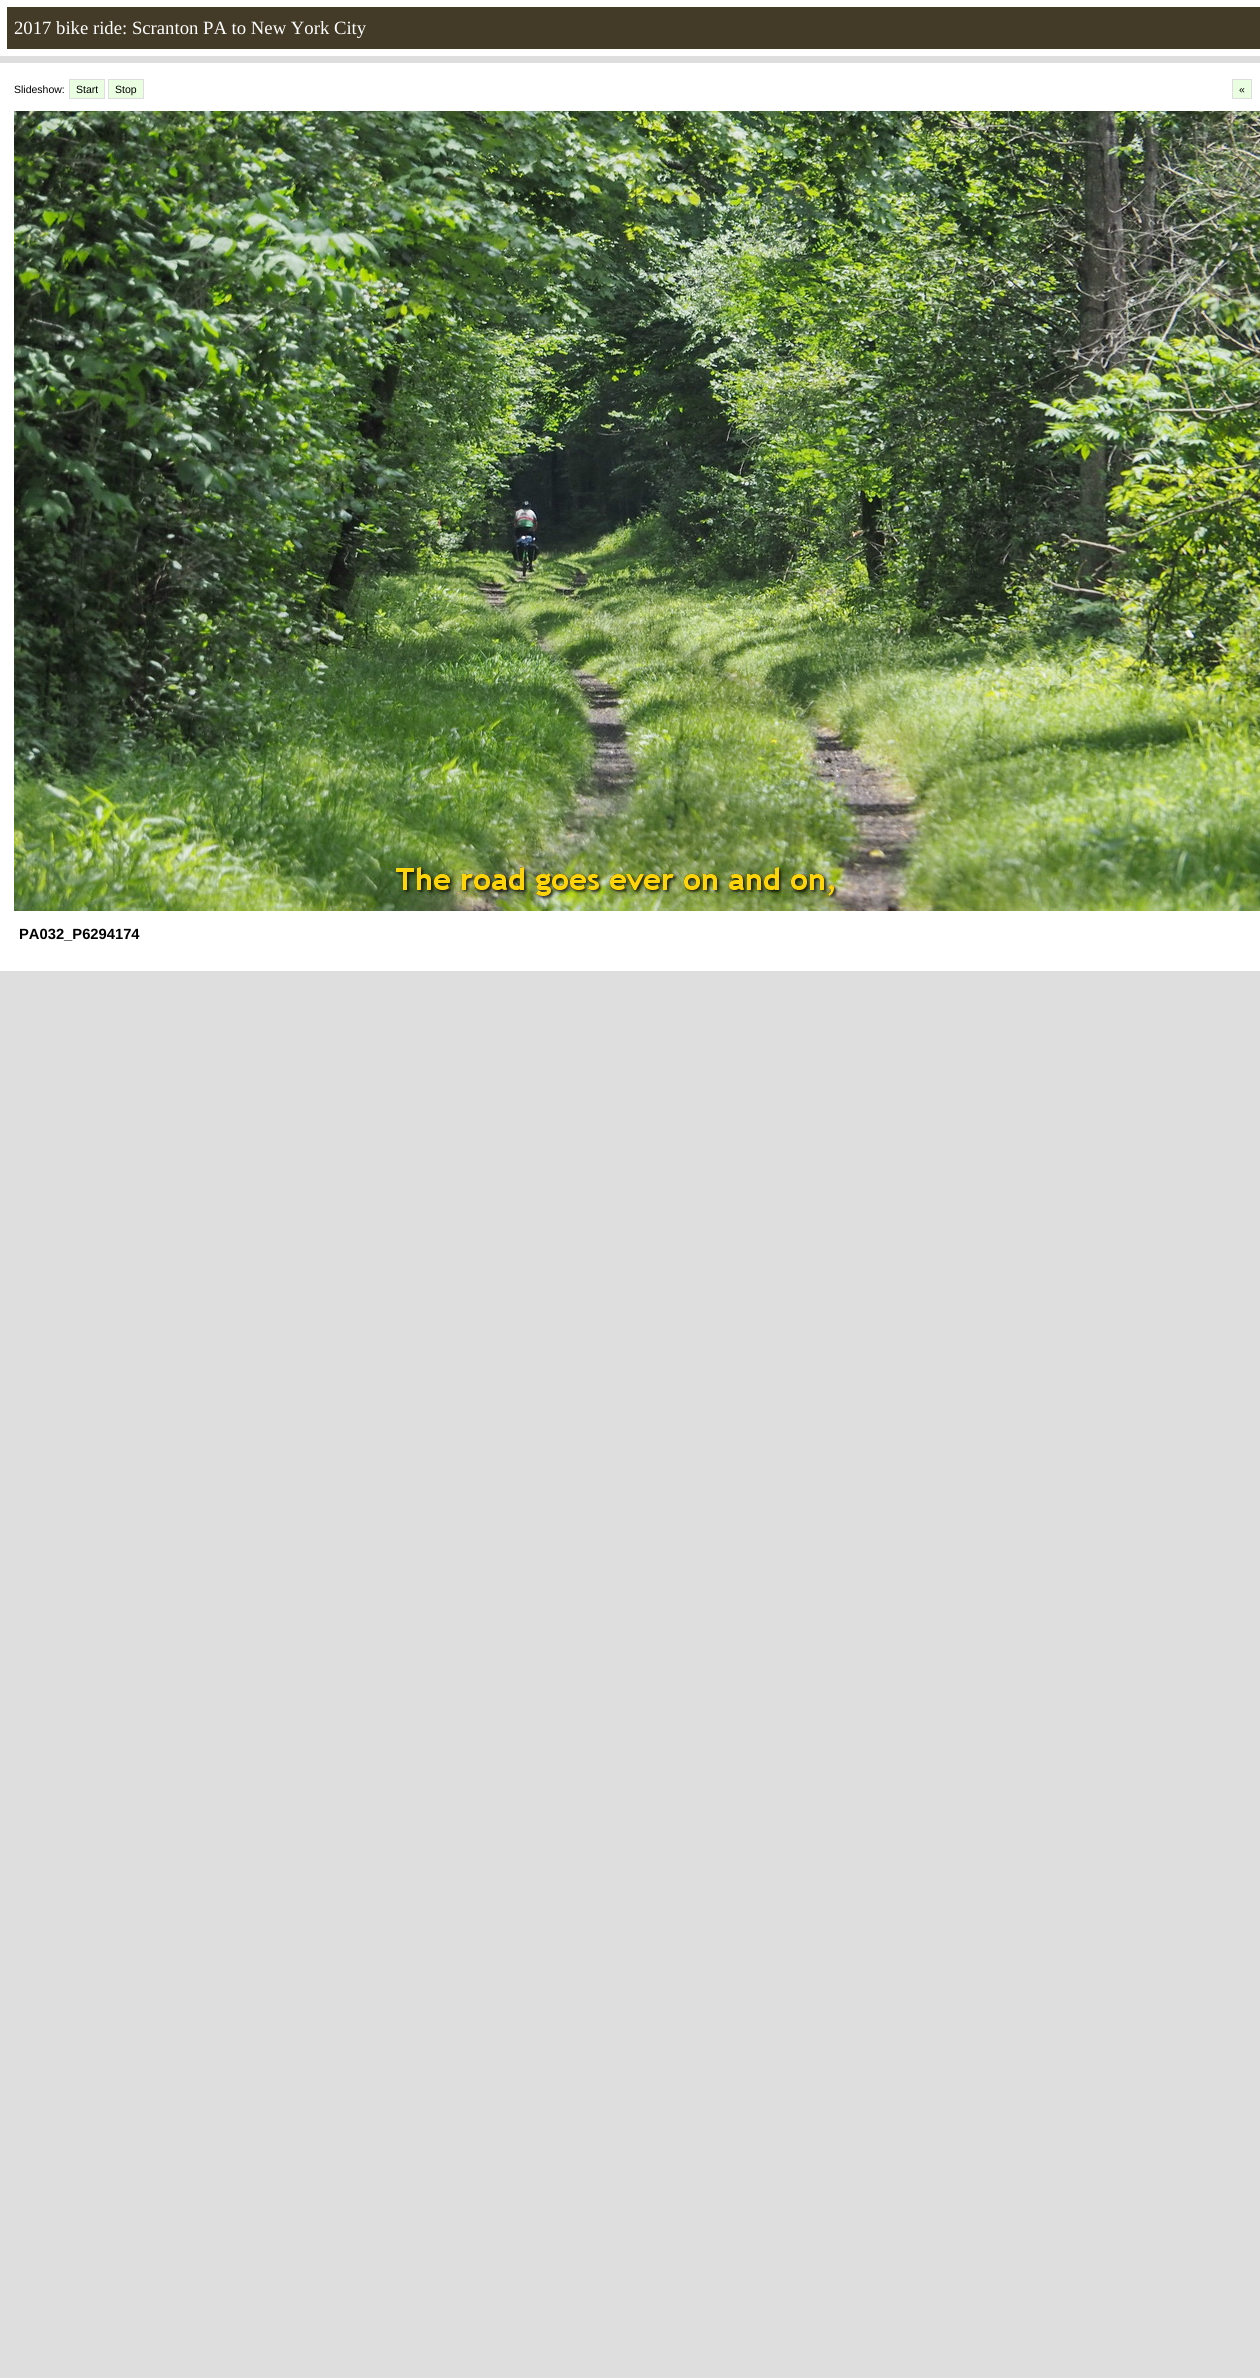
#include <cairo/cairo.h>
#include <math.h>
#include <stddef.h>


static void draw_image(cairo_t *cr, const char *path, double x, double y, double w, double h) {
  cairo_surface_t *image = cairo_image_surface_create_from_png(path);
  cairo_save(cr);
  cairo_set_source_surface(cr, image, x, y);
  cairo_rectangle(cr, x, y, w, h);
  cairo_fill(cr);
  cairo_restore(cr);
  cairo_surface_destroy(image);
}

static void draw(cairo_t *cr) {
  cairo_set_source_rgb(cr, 222 / 255.0, 222 / 255.0, 222 / 255.0);
  cairo_paint(cr);
  cairo_set_source_rgb(cr, 67 / 255.0, 58 / 255.0, 39 / 255.0);
  cairo_rectangle(cr, 3.5, 3.5, 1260, 49);
  cairo_fill_preserve(cr);
  cairo_set_source_rgb(cr, 1, 1, 1);
  cairo_set_line_width(cr, 7);
  cairo_stroke(cr);
  cairo_rectangle(cr, 0, 63, 1260, 908);
  cairo_fill(cr);
  cairo_set_source_rgb(cr, 234 / 255.0, 1, 225 / 255.0);
  cairo_rectangle(cr, 69.5, 79.5, 35, 19);
  cairo_fill_preserve(cr);
  cairo_set_source_rgb(cr, 221 / 255.0, 221 / 255.0, 221 / 255.0);
  cairo_set_line_width(cr, 1);
  cairo_stroke(cr);
  cairo_set_source_rgb(cr, 234 / 255.0, 1, 225 / 255.0);
  cairo_rectangle(cr, 108.5, 79.5, 35, 19);
  cairo_fill_preserve(cr);
  cairo_set_source_rgb(cr, 221 / 255.0, 221 / 255.0, 221 / 255.0);
  cairo_stroke(cr);
  cairo_set_source_rgb(cr, 234 / 255.0, 1, 225 / 255.0);
  cairo_rectangle(cr, 1232.5, 79.5, 19, 19);
  cairo_fill_preserve(cr);
  cairo_set_source_rgb(cr, 221 / 255.0, 221 / 255.0, 221 / 255.0);
  cairo_stroke(cr);
  draw_image(cr, "images/1.png", 14, 111, 1246, 800);
  cairo_select_font_face(cr, "Liberation Serif", CAIRO_FONT_SLANT_NORMAL, CAIRO_FONT_WEIGHT_NORMAL);
  cairo_set_font_size(cr, 18.7);
  cairo_set_source_rgb(cr, 1, 1, 1);
  cairo_move_to(cr, 14, 34);
  cairo_show_text(cr, "2017 bike ride: Scranton PA to New York City");
  cairo_select_font_face(cr, "Liberation Sans", CAIRO_FONT_SLANT_NORMAL, CAIRO_FONT_WEIGHT_NORMAL);
  cairo_set_font_size(cr, 10.5);
  cairo_set_source_rgb(cr, 0, 0, 0);
  cairo_move_to(cr, 14, 93);
  cairo_show_text(cr, "Slideshow:");
  cairo_move_to(cr, 76, 93);
  cairo_show_text(cr, "Start");
  cairo_move_to(cr, 115, 93);
  cairo_show_text(cr, "Stop");
  cairo_move_to(cr, 1239, 93);
  cairo_show_text(cr, "«");
  cairo_select_font_face(cr, "Liberation Sans", CAIRO_FONT_SLANT_NORMAL, CAIRO_FONT_WEIGHT_BOLD);
  cairo_set_font_size(cr, 14.75);
  cairo_move_to(cr, 19, 939);
  cairo_show_text(cr, "PA032_P6294174");
}

int main(void) {
  cairo_surface_t *surface = cairo_image_surface_create(CAIRO_FORMAT_RGB24, 1260, 2378);
  cairo_t *cr = cairo_create(surface);
  cairo_font_options_t *options = cairo_font_options_create();
  cairo_font_options_set_hint_metrics(options, CAIRO_HINT_METRICS_OFF);
  cairo_font_options_set_hint_style(options, CAIRO_HINT_STYLE_NONE);
  cairo_set_font_options(cr, options);
  cairo_set_miter_limit(cr, 4);
  draw(cr);
  cairo_surface_write_to_png(surface, "out.png");
  cairo_font_options_destroy(options);
  cairo_destroy(cr);
  cairo_surface_destroy(surface);
  return 0;
}
